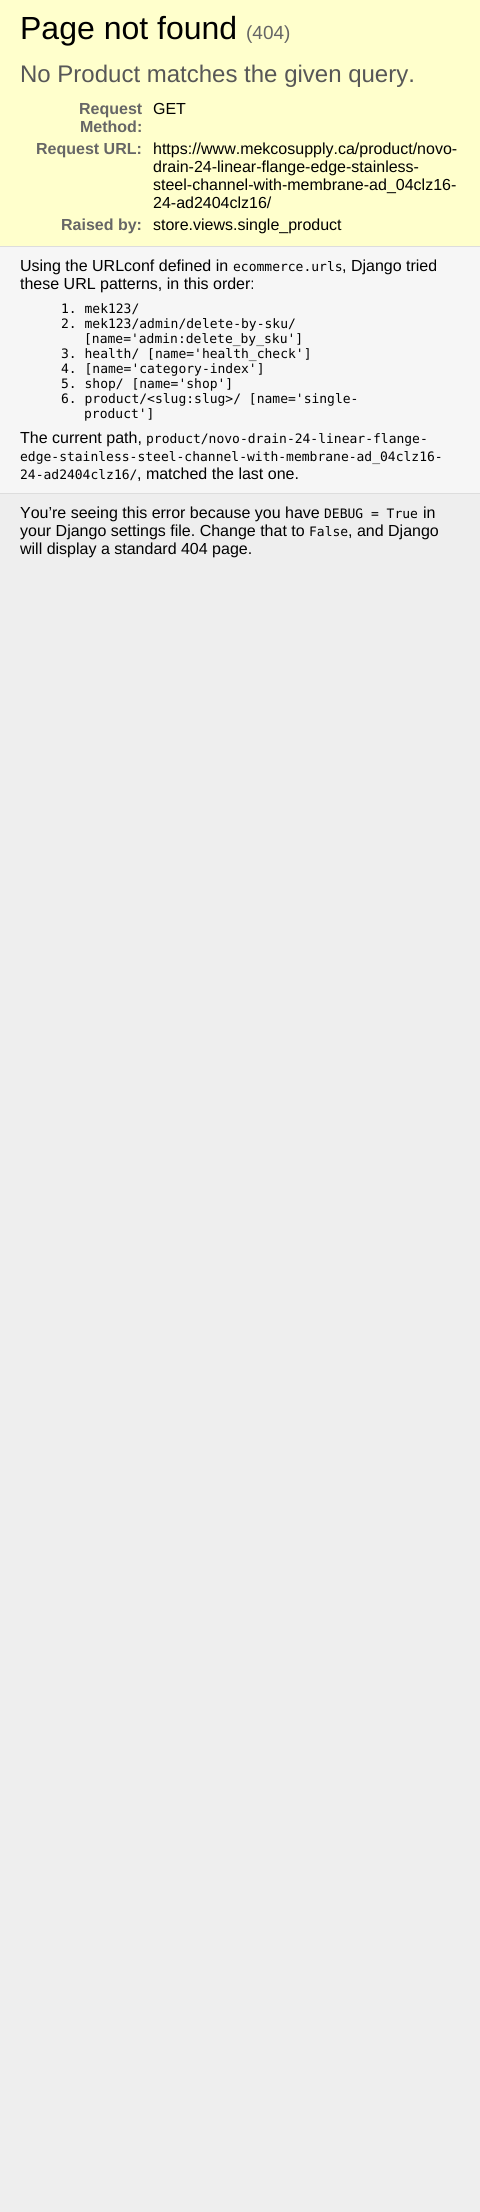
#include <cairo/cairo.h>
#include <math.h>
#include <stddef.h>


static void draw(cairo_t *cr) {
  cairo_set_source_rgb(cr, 238 / 255.0, 238 / 255.0, 238 / 255.0);
  cairo_paint(cr);
  cairo_set_source_rgb(cr, 1, 1, 204 / 255.0);
  cairo_rectangle(cr, 0, 0, 480, 246);
  cairo_fill(cr);
  cairo_set_source_rgb(cr, 221 / 255.0, 221 / 255.0, 221 / 255.0);
  cairo_rectangle(cr, 0, 246, 480, 1);
  cairo_fill(cr);
  cairo_set_source_rgb(cr, 246 / 255.0, 246 / 255.0, 246 / 255.0);
  cairo_rectangle(cr, 0, 247, 480, 246);
  cairo_fill(cr);
  cairo_set_source_rgb(cr, 221 / 255.0, 221 / 255.0, 221 / 255.0);
  cairo_rectangle(cr, 0, 493, 480, 1);
  cairo_fill(cr);
  cairo_select_font_face(cr, "Liberation Sans", CAIRO_FONT_SLANT_NORMAL, CAIRO_FONT_WEIGHT_NORMAL);
  cairo_set_font_size(cr, 32);
  cairo_set_source_rgb(cr, 0, 0, 0);
  cairo_move_to(cr, 20, 39);
  cairo_show_text(cr, "Page not found");
  cairo_set_font_size(cr, 19);
  cairo_set_source_rgb(cr, 102 / 255.0, 102 / 255.0, 102 / 255.0);
  cairo_move_to(cr, 246, 39);
  cairo_show_text(cr, "(404)");
  cairo_set_font_size(cr, 24);
  cairo_set_source_rgb(cr, 87 / 255.0, 87 / 255.0, 87 / 255.0);
  cairo_move_to(cr, 20, 82);
  cairo_show_text(cr, "No Product matches the given query.");
  cairo_select_font_face(cr, "Liberation Sans", CAIRO_FONT_SLANT_NORMAL, CAIRO_FONT_WEIGHT_BOLD);
  cairo_set_font_size(cr, 16);
  cairo_set_source_rgb(cr, 102 / 255.0, 102 / 255.0, 102 / 255.0);
  cairo_move_to(cr, 79, 114);
  cairo_show_text(cr, "Request");
  cairo_move_to(cr, 80, 132);
  cairo_show_text(cr, "Method:");
  cairo_select_font_face(cr, "Liberation Sans", CAIRO_FONT_SLANT_NORMAL, CAIRO_FONT_WEIGHT_NORMAL);
  cairo_set_source_rgb(cr, 0, 0, 0);
  cairo_move_to(cr, 153, 114);
  cairo_show_text(cr, "GET");
  cairo_select_font_face(cr, "Liberation Sans", CAIRO_FONT_SLANT_NORMAL, CAIRO_FONT_WEIGHT_BOLD);
  cairo_set_source_rgb(cr, 102 / 255.0, 102 / 255.0, 102 / 255.0);
  cairo_move_to(cr, 36, 154);
  cairo_show_text(cr, "Request URL:");
  cairo_select_font_face(cr, "Liberation Sans", CAIRO_FONT_SLANT_NORMAL, CAIRO_FONT_WEIGHT_NORMAL);
  cairo_set_source_rgb(cr, 0, 0, 0);
  cairo_move_to(cr, 153, 154);
  cairo_show_text(cr, "https://www.mekcosupply.ca/product/novo-");
  cairo_move_to(cr, 153, 172);
  cairo_show_text(cr, "drain-24-linear-flange-edge-stainless-");
  cairo_move_to(cr, 153, 190);
  cairo_show_text(cr, "steel-channel-with-membrane-ad_04clz16-");
  cairo_move_to(cr, 153, 208);
  cairo_show_text(cr, "24-ad2404clz16/");
  cairo_select_font_face(cr, "Liberation Sans", CAIRO_FONT_SLANT_NORMAL, CAIRO_FONT_WEIGHT_BOLD);
  cairo_set_source_rgb(cr, 102 / 255.0, 102 / 255.0, 102 / 255.0);
  cairo_move_to(cr, 61, 230);
  cairo_show_text(cr, "Raised by:");
  cairo_select_font_face(cr, "Liberation Sans", CAIRO_FONT_SLANT_NORMAL, CAIRO_FONT_WEIGHT_NORMAL);
  cairo_set_source_rgb(cr, 0, 0, 0);
  cairo_move_to(cr, 153, 230);
  cairo_show_text(cr, "store.views.single_product");
  cairo_move_to(cr, 20, 271);
  cairo_show_text(cr, "Using the URLconf defined in");
  cairo_select_font_face(cr, "DejaVu Sans Mono", CAIRO_FONT_SLANT_NORMAL, CAIRO_FONT_WEIGHT_NORMAL);
  cairo_set_font_size(cr, 13);
  cairo_move_to(cr, 233, 271);
  cairo_show_text(cr, "ecommerce.urls");
  cairo_select_font_face(cr, "Liberation Sans", CAIRO_FONT_SLANT_NORMAL, CAIRO_FONT_WEIGHT_NORMAL);
  cairo_set_font_size(cr, 16);
  cairo_move_to(cr, 342, 271);
  cairo_show_text(cr, ", Django tried");
  cairo_move_to(cr, 20, 289);
  cairo_show_text(cr, "these URL patterns, in this order:");
  cairo_select_font_face(cr, "DejaVu Sans Mono", CAIRO_FONT_SLANT_NORMAL, CAIRO_FONT_WEIGHT_NORMAL);
  cairo_set_font_size(cr, 13);
  cairo_move_to(cr, 61, 313);
  cairo_show_text(cr, "1. mek123/");
  cairo_move_to(cr, 61, 328);
  cairo_show_text(cr, "2. mek123/admin/delete-by-sku/");
  cairo_move_to(cr, 84, 343);
  cairo_show_text(cr, "[name='admin:delete_by_sku']");
  cairo_move_to(cr, 61, 358);
  cairo_show_text(cr, "3. health/ [name='health_check']");
  cairo_move_to(cr, 61, 373);
  cairo_show_text(cr, "4. [name='category-index']");
  cairo_move_to(cr, 61, 388);
  cairo_show_text(cr, "5. shop/ [name='shop']");
  cairo_move_to(cr, 61, 403);
  cairo_show_text(cr, "6. product/<slug:slug>/ [name='single-");
  cairo_move_to(cr, 84, 418);
  cairo_show_text(cr, "product']");
  cairo_select_font_face(cr, "Liberation Sans", CAIRO_FONT_SLANT_NORMAL, CAIRO_FONT_WEIGHT_NORMAL);
  cairo_set_font_size(cr, 16);
  cairo_move_to(cr, 20, 443);
  cairo_show_text(cr, "The current path,");
  cairo_select_font_face(cr, "DejaVu Sans Mono", CAIRO_FONT_SLANT_NORMAL, CAIRO_FONT_WEIGHT_NORMAL);
  cairo_set_font_size(cr, 13);
  cairo_move_to(cr, 146, 443);
  cairo_show_text(cr, "product/novo-drain-24-linear-flange-");
  cairo_move_to(cr, 20, 461);
  cairo_show_text(cr, "edge-stainless-steel-channel-with-membrane-ad_04clz16-");
  cairo_move_to(cr, 20, 479);
  cairo_show_text(cr, "24-ad2404clz16/");
  cairo_select_font_face(cr, "Liberation Sans", CAIRO_FONT_SLANT_NORMAL, CAIRO_FONT_WEIGHT_NORMAL);
  cairo_set_font_size(cr, 16);
  cairo_move_to(cr, 137, 479);
  cairo_show_text(cr, ", matched the last one.");
  cairo_move_to(cr, 20, 518);
  cairo_show_text(cr, "You’re seeing this error because you have");
  cairo_select_font_face(cr, "DejaVu Sans Mono", CAIRO_FONT_SLANT_NORMAL, CAIRO_FONT_WEIGHT_NORMAL);
  cairo_set_font_size(cr, 13);
  cairo_move_to(cr, 324, 518);
  cairo_show_text(cr, "DEBUG = True");
  cairo_select_font_face(cr, "Liberation Sans", CAIRO_FONT_SLANT_NORMAL, CAIRO_FONT_WEIGHT_NORMAL);
  cairo_set_font_size(cr, 16);
  cairo_move_to(cr, 423, 518);
  cairo_show_text(cr, "in");
  cairo_move_to(cr, 20, 536);
  cairo_show_text(cr, "your Django settings file. Change that to");
  cairo_select_font_face(cr, "DejaVu Sans Mono", CAIRO_FONT_SLANT_NORMAL, CAIRO_FONT_WEIGHT_NORMAL);
  cairo_set_font_size(cr, 13);
  cairo_move_to(cr, 309, 536);
  cairo_show_text(cr, "False");
  cairo_select_font_face(cr, "Liberation Sans", CAIRO_FONT_SLANT_NORMAL, CAIRO_FONT_WEIGHT_NORMAL);
  cairo_set_font_size(cr, 16);
  cairo_move_to(cr, 348, 536);
  cairo_show_text(cr, ", and Django");
  cairo_move_to(cr, 20, 554);
  cairo_show_text(cr, "will display a standard 404 page.");
}

int main(void) {
  cairo_surface_t *surface = cairo_image_surface_create(CAIRO_FORMAT_RGB24, 480, 2212);
  cairo_t *cr = cairo_create(surface);
  cairo_font_options_t *options = cairo_font_options_create();
  cairo_font_options_set_hint_metrics(options, CAIRO_HINT_METRICS_OFF);
  cairo_font_options_set_hint_style(options, CAIRO_HINT_STYLE_NONE);
  cairo_set_font_options(cr, options);
  cairo_set_miter_limit(cr, 4);
  draw(cr);
  cairo_surface_write_to_png(surface, "out.png");
  cairo_font_options_destroy(options);
  cairo_destroy(cr);
  cairo_surface_destroy(surface);
  return 0;
}
